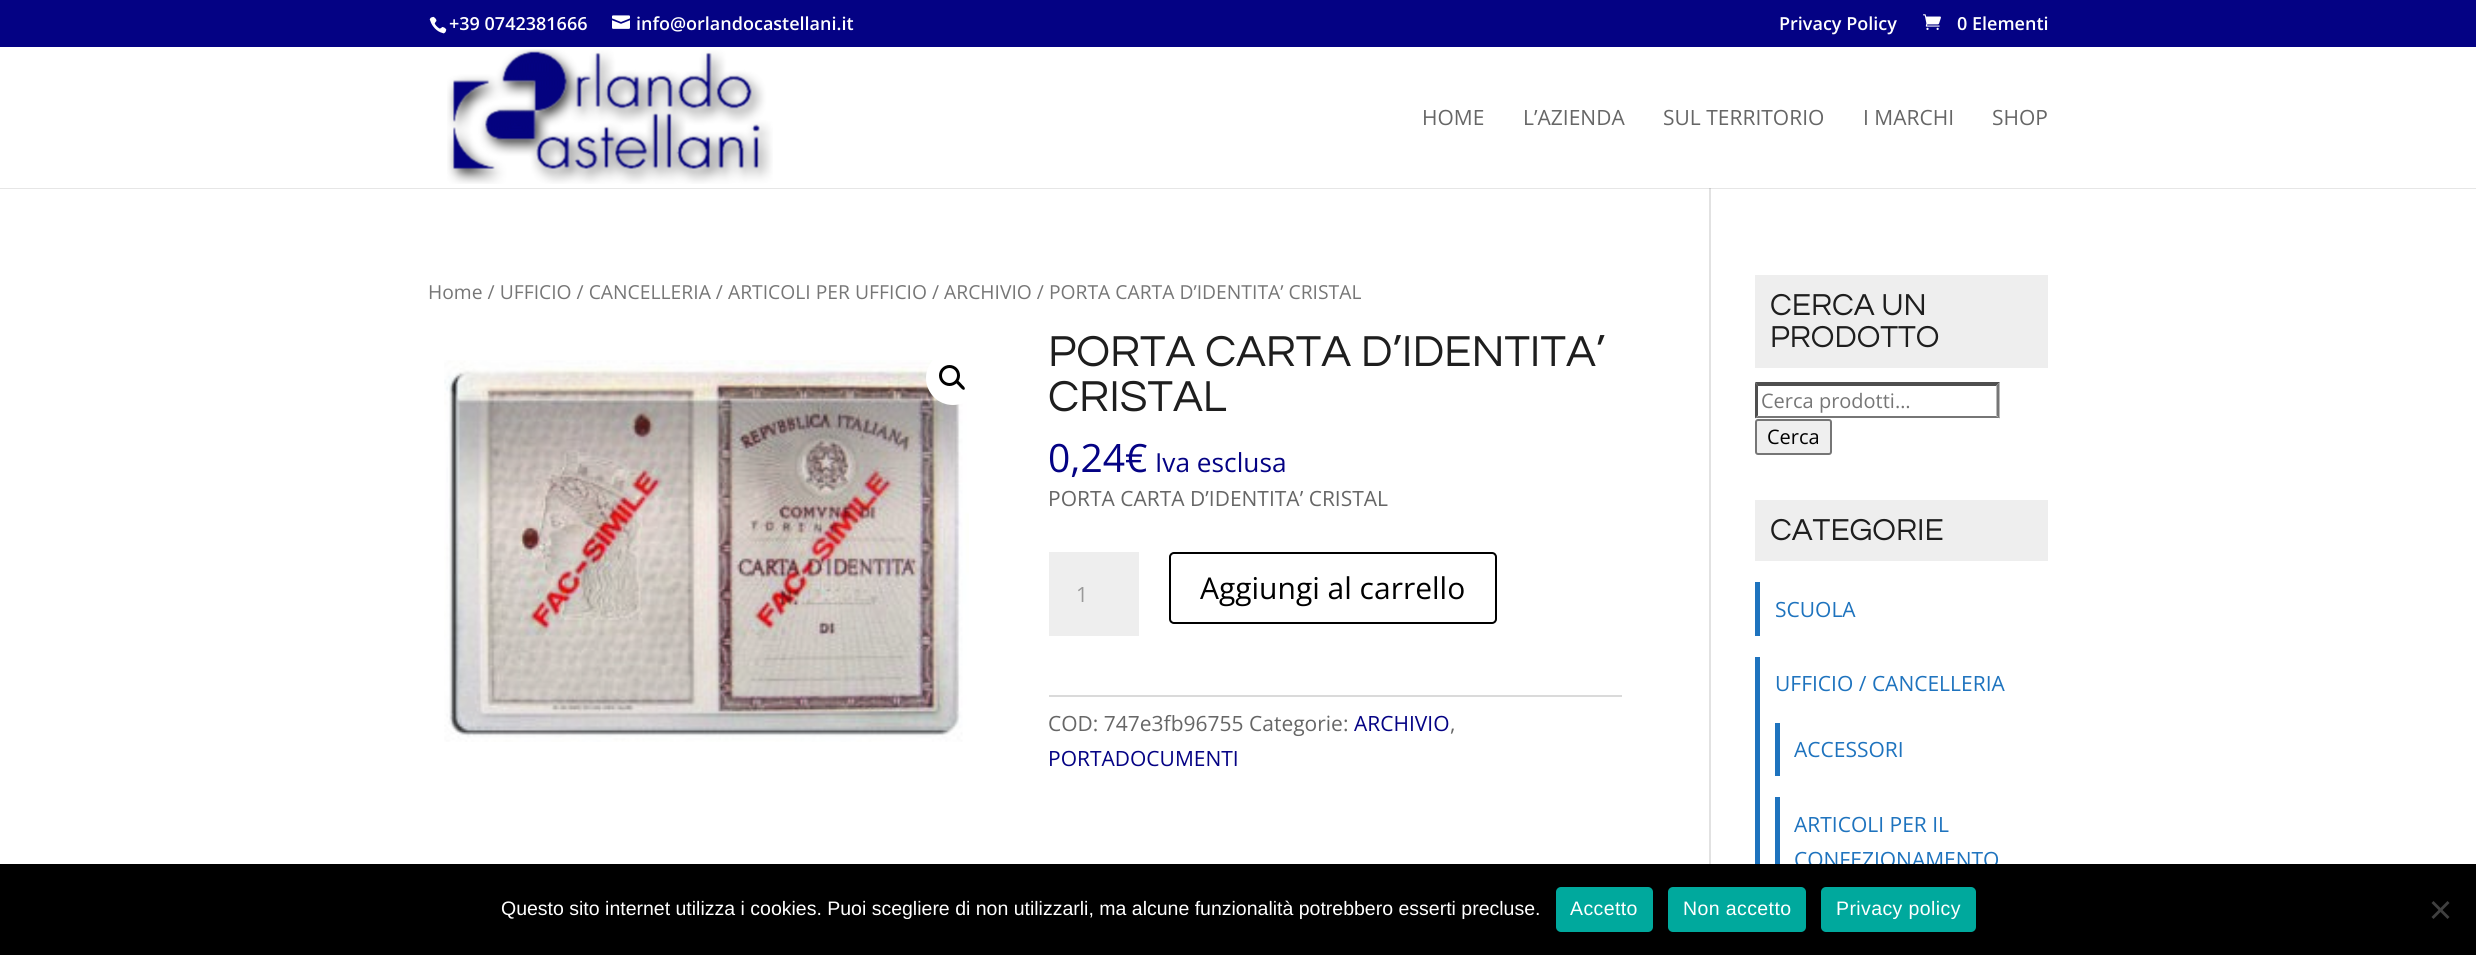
#include <cairo/cairo.h>
#include <math.h>
#include <stddef.h>


static void draw_spaced(cairo_t *cr, double x, double y, const char *s, double letter, double word) {
  cairo_move_to(cr, x, y);
  while (*s) {
    char ch[5] = {0};
    int n = 0;
    do ch[n++] = *s++; while ((*s & 0xC0) == 0x80);
    cairo_show_text(cr, ch);
    cairo_rel_move_to(cr, letter + word * (*ch == ' '), 0);
  }
}

static void rounded_rect(cairo_t *cr, double x, double y, double w, double h, double r) {
  cairo_new_sub_path(cr);
  cairo_arc(cr, x + w - r, y + h - r, r, 0, M_PI / 2);
  cairo_arc(cr, x + r, y + h - r, r, M_PI / 2, M_PI);
  cairo_arc(cr, x + r, y + r, r, M_PI, 1.5 * M_PI);
  cairo_arc(cr, x + w - r, y + r, r, 1.5 * M_PI, 2 * M_PI);
  cairo_close_path(cr);
}

static void draw_image(cairo_t *cr, const char *path, double x, double y, double w, double h) {
  cairo_surface_t *image = cairo_image_surface_create_from_png(path);
  cairo_save(cr);
  cairo_set_source_surface(cr, image, x, y);
  cairo_rectangle(cr, x, y, w, h);
  cairo_fill(cr);
  cairo_restore(cr);
  cairo_surface_destroy(image);
}

static void draw(cairo_t *cr) {
  cairo_set_source_rgb(cr, 1, 1, 1);
  cairo_paint(cr);
  cairo_set_source_rgb(cr, 4 / 255.0, 2 / 255.0, 132 / 255.0);
  cairo_rectangle(cr, 0, 0, 2476, 47);
  cairo_fill(cr);
  draw_image(cr, "images/1.png", 429, 16, 18, 18);
  draw_image(cr, "images/2.png", 612, 15, 18, 14);
  draw_image(cr, "images/3.png", 1923, 14, 18, 16);
  cairo_set_source_rgb(cr, 226 / 255.0, 226 / 255.0, 226 / 255.0);
  cairo_rectangle(cr, 1709, 188, 2, 676);
  cairo_fill(cr);
  cairo_set_source_rgba(cr, 0, 0, 0, 0.1);
  cairo_new_path(cr);
  cairo_move_to(cr, 0, 188);
  cairo_line_to(cr, 0, 189);
  cairo_line_to(cr, 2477, 189);
  cairo_line_to(cr, 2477, 48);
  cairo_line_to(cr, 2476, 48);
  cairo_line_to(cr, 2476, 188);
  cairo_close_path(cr);
  cairo_fill(cr);
  draw_image(cr, "images/4.png", 447, 49, 326, 135);
  draw_image(cr, "images/5.png", 444, 360, 525, 382);
  cairo_set_source_rgb(cr, 1, 1, 1);
  cairo_arc(cr, 953, 378, 27, 0, 2 * M_PI);
  cairo_fill(cr);
  cairo_arc(cr, 949.5, 375.5, 9, 0, 2 * M_PI);
  cairo_set_source_rgb(cr, 0, 0, 0);
  cairo_set_line_width(cr, 3);
  cairo_stroke(cr);
  cairo_new_path(cr);
  cairo_move_to(cr, 956, 381);
  cairo_curve_to(cr, 957.5, 379, 960.5, 383, 961.5, 384);
  cairo_curve_to(cr, 962, 385, 966, 387.5, 964.5, 389.5);
  cairo_curve_to(cr, 963, 391, 960, 387, 959, 386);
  cairo_curve_to(cr, 958.5, 385, 954.5, 382.5, 956, 381);
  cairo_close_path(cr);
  cairo_fill(cr);
  cairo_set_source_rgb(cr, 238 / 255.0, 238 / 255.0, 238 / 255.0);
  cairo_rectangle(cr, 1049, 552, 90, 84);
  cairo_fill(cr);
  rounded_rect(cr, 1170, 553, 326, 70, 4);
  cairo_set_source_rgb(cr, 0, 0, 0);
  cairo_set_line_width(cr, 2);
  cairo_stroke(cr);
  cairo_set_source_rgb(cr, 218 / 255.0, 218 / 255.0, 218 / 255.0);
  cairo_rectangle(cr, 1049, 695, 573, 2);
  cairo_fill(cr);
  cairo_set_source_rgb(cr, 238 / 255.0, 238 / 255.0, 238 / 255.0);
  cairo_rectangle(cr, 1755, 275, 293, 93);
  cairo_fill(cr);
  cairo_set_source_rgb(cr, 79 / 255.0, 79 / 255.0, 79 / 255.0);
  cairo_new_path(cr);
  cairo_move_to(cr, 1755, 382);
  cairo_line_to(cr, 2000, 382);
  cairo_line_to(cr, 1996, 386);
  cairo_line_to(cr, 1758, 386);
  cairo_close_path(cr);
  cairo_fill(cr);
  cairo_set_source_rgb(cr, 118 / 255.0, 118 / 255.0, 118 / 255.0);
  cairo_new_path(cr);
  cairo_move_to(cr, 1999.5, 382.5);
  cairo_line_to(cr, 1999.5, 418.5);
  cairo_line_to(cr, 1996.5, 415.5);
  cairo_line_to(cr, 1996.5, 385.5);
  cairo_close_path(cr);
  cairo_fill(cr);
  cairo_new_path(cr);
  cairo_move_to(cr, 2000, 418);
  cairo_line_to(cr, 1755, 418);
  cairo_line_to(cr, 1758, 416);
  cairo_line_to(cr, 1996, 416);
  cairo_close_path(cr);
  cairo_fill(cr);
  cairo_set_source_rgb(cr, 79 / 255.0, 79 / 255.0, 79 / 255.0);
  cairo_new_path(cr);
  cairo_move_to(cr, 1755, 418.5);
  cairo_line_to(cr, 1755, 382.5);
  cairo_line_to(cr, 1758, 385.5);
  cairo_line_to(cr, 1758, 415.5);
  cairo_close_path(cr);
  cairo_fill(cr);
  cairo_set_source_rgb(cr, 239 / 255.0, 239 / 255.0, 239 / 255.0);
  rounded_rect(cr, 1756, 420, 75, 34, 2);
  cairo_fill_preserve(cr);
  cairo_set_source_rgb(cr, 118 / 255.0, 118 / 255.0, 118 / 255.0);
  cairo_stroke(cr);
  cairo_set_source_rgb(cr, 238 / 255.0, 238 / 255.0, 238 / 255.0);
  cairo_rectangle(cr, 1755, 500, 293, 61);
  cairo_fill(cr);
  cairo_set_source_rgb(cr, 30 / 255.0, 115 / 255.0, 190 / 255.0);
  cairo_rectangle(cr, 1755, 582, 5, 54);
  cairo_fill(cr);
  cairo_rectangle(cr, 1755, 657, 5, 207);
  cairo_fill(cr);
  cairo_rectangle(cr, 1775, 723, 5, 53);
  cairo_fill(cr);
  cairo_rectangle(cr, 1775, 797, 5, 67);
  cairo_fill(cr);
  cairo_select_font_face(cr, "Open Sans SemiBold", CAIRO_FONT_SLANT_NORMAL, CAIRO_FONT_WEIGHT_NORMAL);
  cairo_set_font_size(cr, 18);
  cairo_set_source_rgb(cr, 1, 1, 1);
  cairo_move_to(cr, 449, 30);
  cairo_show_text(cr, "+39 0742381666");
  cairo_move_to(cr, 636, 30);
  cairo_show_text(cr, "info@orlandocastellani.it");
  cairo_move_to(cr, 1779, 30);
  cairo_show_text(cr, "Privacy Policy");
  cairo_move_to(cr, 1957, 30);
  cairo_show_text(cr, "0 Elementi");
  cairo_select_font_face(cr, "Open Sans", CAIRO_FONT_SLANT_NORMAL, CAIRO_FONT_WEIGHT_NORMAL);
  cairo_set_font_size(cr, 21);
  cairo_set_source_rgb(cr, 102 / 255.0, 102 / 255.0, 102 / 255.0);
  cairo_move_to(cr, 1422, 125);
  cairo_show_text(cr, "HOME");
  cairo_move_to(cr, 1523, 125);
  cairo_show_text(cr, "L’AZIENDA");
  cairo_move_to(cr, 1663, 125);
  cairo_show_text(cr, "SUL TERRITORIO");
  cairo_move_to(cr, 1863, 125);
  cairo_show_text(cr, "I MARCHI");
  cairo_move_to(cr, 1992, 125);
  cairo_show_text(cr, "SHOP");
  cairo_set_font_size(cr, 19.3);
  cairo_set_source_rgb(cr, 118 / 255.0, 118 / 255.0, 118 / 255.0);
  cairo_move_to(cr, 428, 299);
  cairo_show_text(cr, "Home / UFFICIO / CANCELLERIA / ARTICOLI PER UFFICIO / ARCHIVIO / PORTA CARTA D’IDENTITA’ CRISTAL");
  cairo_select_font_face(cr, "Questrial", CAIRO_FONT_SLANT_NORMAL, CAIRO_FONT_WEIGHT_NORMAL);
  cairo_set_font_size(cr, 45);
  cairo_set_source_rgb(cr, 30 / 255.0, 30 / 255.0, 30 / 255.0);
  cairo_move_to(cr, 1048, 366);
  cairo_show_text(cr, "PORTA CARTA D’IDENTITA’");
  cairo_move_to(cr, 1048, 411);
  cairo_show_text(cr, "CRISTAL");
  cairo_select_font_face(cr, "Open Sans", CAIRO_FONT_SLANT_NORMAL, CAIRO_FONT_WEIGHT_NORMAL);
  cairo_set_font_size(cr, 39);
  cairo_set_source_rgb(cr, 4 / 255.0, 2 / 255.0, 132 / 255.0);
  cairo_move_to(cr, 1048, 472);
  cairo_show_text(cr, "0,24€");
  cairo_set_font_size(cr, 26.25);
  cairo_move_to(cr, 1155, 472);
  cairo_show_text(cr, "Iva esclusa");
  cairo_set_font_size(cr, 21);
  cairo_set_source_rgb(cr, 102 / 255.0, 102 / 255.0, 102 / 255.0);
  cairo_move_to(cr, 1048, 506);
  cairo_show_text(cr, "PORTA CARTA D’IDENTITA’ CRISTAL");
  cairo_set_source_rgb(cr, 153 / 255.0, 153 / 255.0, 153 / 255.0);
  cairo_move_to(cr, 1076, 602);
  cairo_show_text(cr, "1");
  cairo_set_font_size(cr, 30);
  cairo_set_source_rgb(cr, 0, 0, 0);
  cairo_move_to(cr, 1200, 599);
  cairo_show_text(cr, "Aggiungi al carrello");
  cairo_set_font_size(cr, 21);
  cairo_set_source_rgb(cr, 102 / 255.0, 102 / 255.0, 102 / 255.0);
  cairo_move_to(cr, 1048, 731);
  cairo_show_text(cr, "COD: 747e3fb96755 Categorie:");
  cairo_set_source_rgb(cr, 4 / 255.0, 2 / 255.0, 132 / 255.0);
  cairo_move_to(cr, 1354, 731);
  cairo_show_text(cr, "ARCHIVIO");
  cairo_set_source_rgb(cr, 102 / 255.0, 102 / 255.0, 102 / 255.0);
  cairo_move_to(cr, 1450, 731);
  cairo_show_text(cr, ",");
  cairo_set_source_rgb(cr, 4 / 255.0, 2 / 255.0, 132 / 255.0);
  cairo_move_to(cr, 1048, 766);
  cairo_show_text(cr, "PORTADOCUMENTI");
  cairo_select_font_face(cr, "Questrial", CAIRO_FONT_SLANT_NORMAL, CAIRO_FONT_WEIGHT_NORMAL);
  cairo_set_font_size(cr, 31.5);
  cairo_set_source_rgb(cr, 30 / 255.0, 30 / 255.0, 30 / 255.0);
  cairo_move_to(cr, 1770, 315);
  cairo_show_text(cr, "CERCA UN");
  cairo_move_to(cr, 1770, 347);
  cairo_show_text(cr, "PRODOTTO");
  cairo_select_font_face(cr, "Open Sans", CAIRO_FONT_SLANT_NORMAL, CAIRO_FONT_WEIGHT_NORMAL);
  cairo_set_font_size(cr, 20);
  cairo_set_source_rgb(cr, 118 / 255.0, 118 / 255.0, 118 / 255.0);
  cairo_move_to(cr, 1761, 408);
  cairo_show_text(cr, "Cerca prodotti…");
  cairo_set_source_rgb(cr, 0, 0, 0);
  cairo_move_to(cr, 1767, 444);
  cairo_show_text(cr, "Cerca");
  cairo_select_font_face(cr, "Questrial", CAIRO_FONT_SLANT_NORMAL, CAIRO_FONT_WEIGHT_NORMAL);
  cairo_set_font_size(cr, 31.5);
  cairo_set_source_rgb(cr, 30 / 255.0, 30 / 255.0, 30 / 255.0);
  cairo_move_to(cr, 1770, 540);
  cairo_show_text(cr, "CATEGORIE");
  cairo_select_font_face(cr, "Open Sans", CAIRO_FONT_SLANT_NORMAL, CAIRO_FONT_WEIGHT_NORMAL);
  cairo_set_font_size(cr, 21);
  cairo_set_source_rgb(cr, 30 / 255.0, 115 / 255.0, 190 / 255.0);
  cairo_move_to(cr, 1775, 617);
  cairo_show_text(cr, "SCUOLA");
  cairo_move_to(cr, 1775, 691);
  cairo_show_text(cr, "UFFICIO / CANCELLERIA");
  cairo_move_to(cr, 1794, 757);
  cairo_show_text(cr, "ACCESSORI");
  cairo_move_to(cr, 1794, 832);
  cairo_show_text(cr, "ARTICOLI PER IL");
  cairo_move_to(cr, 1794, 867);
  cairo_show_text(cr, "CONFEZIONAMENTO");
  cairo_set_source_rgb(cr, 0, 0, 0);
  cairo_rectangle(cr, 0, 864, 2476, 91);
  cairo_fill(cr);
  cairo_select_font_face(cr, "Liberation Sans", CAIRO_FONT_SLANT_NORMAL, CAIRO_FONT_WEIGHT_NORMAL);
  cairo_set_font_size(cr, 19.5);
  cairo_set_source_rgb(cr, 1, 1, 1);
  cairo_move_to(cr, 501, 915);
  cairo_show_text(cr, "Questo sito internet utilizza i cookies. Puoi scegliere di non utilizzarli, ma alcune funzionalità potrebbero esserti precluse.");
  cairo_set_source_rgb(cr, 0, 169 / 255.0, 157 / 255.0);
  rounded_rect(cr, 1556, 887, 97, 45, 5);
  cairo_fill(cr);
  cairo_set_source_rgb(cr, 1, 1, 1);
  draw_spaced(cr, 1570, 915, "Accetto", 0.4, 0);
  cairo_set_source_rgb(cr, 0, 169 / 255.0, 157 / 255.0);
  rounded_rect(cr, 1668, 887, 138, 45, 5);
  cairo_fill(cr);
  cairo_set_source_rgb(cr, 1, 1, 1);
  draw_spaced(cr, 1683, 915, "Non accetto", 0.4, 0);
  cairo_set_source_rgb(cr, 0, 169 / 255.0, 157 / 255.0);
  rounded_rect(cr, 1821, 887, 155, 45, 5);
  cairo_fill(cr);
  cairo_set_source_rgb(cr, 1, 1, 1);
  draw_spaced(cr, 1836, 915, "Privacy policy", 0.4, 0);
  cairo_set_source_rgb(cr, 64 / 255.0, 64 / 255.0, 64 / 255.0);
  cairo_new_path(cr);
  cairo_move_to(cr, 2447.5, 901);
  cairo_line_to(cr, 2449.5, 903);
  cairo_line_to(cr, 2433.5, 919);
  cairo_line_to(cr, 2431.5, 917);
  cairo_close_path(cr);
  cairo_fill(cr);
  cairo_new_path(cr);
  cairo_move_to(cr, 2431.5, 903);
  cairo_line_to(cr, 2433.5, 901);
  cairo_line_to(cr, 2449.5, 917);
  cairo_line_to(cr, 2447.5, 919);
  cairo_close_path(cr);
  cairo_fill(cr);
}

int main(void) {
  cairo_surface_t *surface = cairo_image_surface_create(CAIRO_FORMAT_RGB24, 2476, 955);
  cairo_t *cr = cairo_create(surface);
  cairo_font_options_t *options = cairo_font_options_create();
  cairo_font_options_set_hint_metrics(options, CAIRO_HINT_METRICS_OFF);
  cairo_font_options_set_hint_style(options, CAIRO_HINT_STYLE_NONE);
  cairo_set_font_options(cr, options);
  cairo_set_miter_limit(cr, 4);
  draw(cr);
  cairo_surface_write_to_png(surface, "out.png");
  cairo_font_options_destroy(options);
  cairo_destroy(cr);
  cairo_surface_destroy(surface);
  return 0;
}
